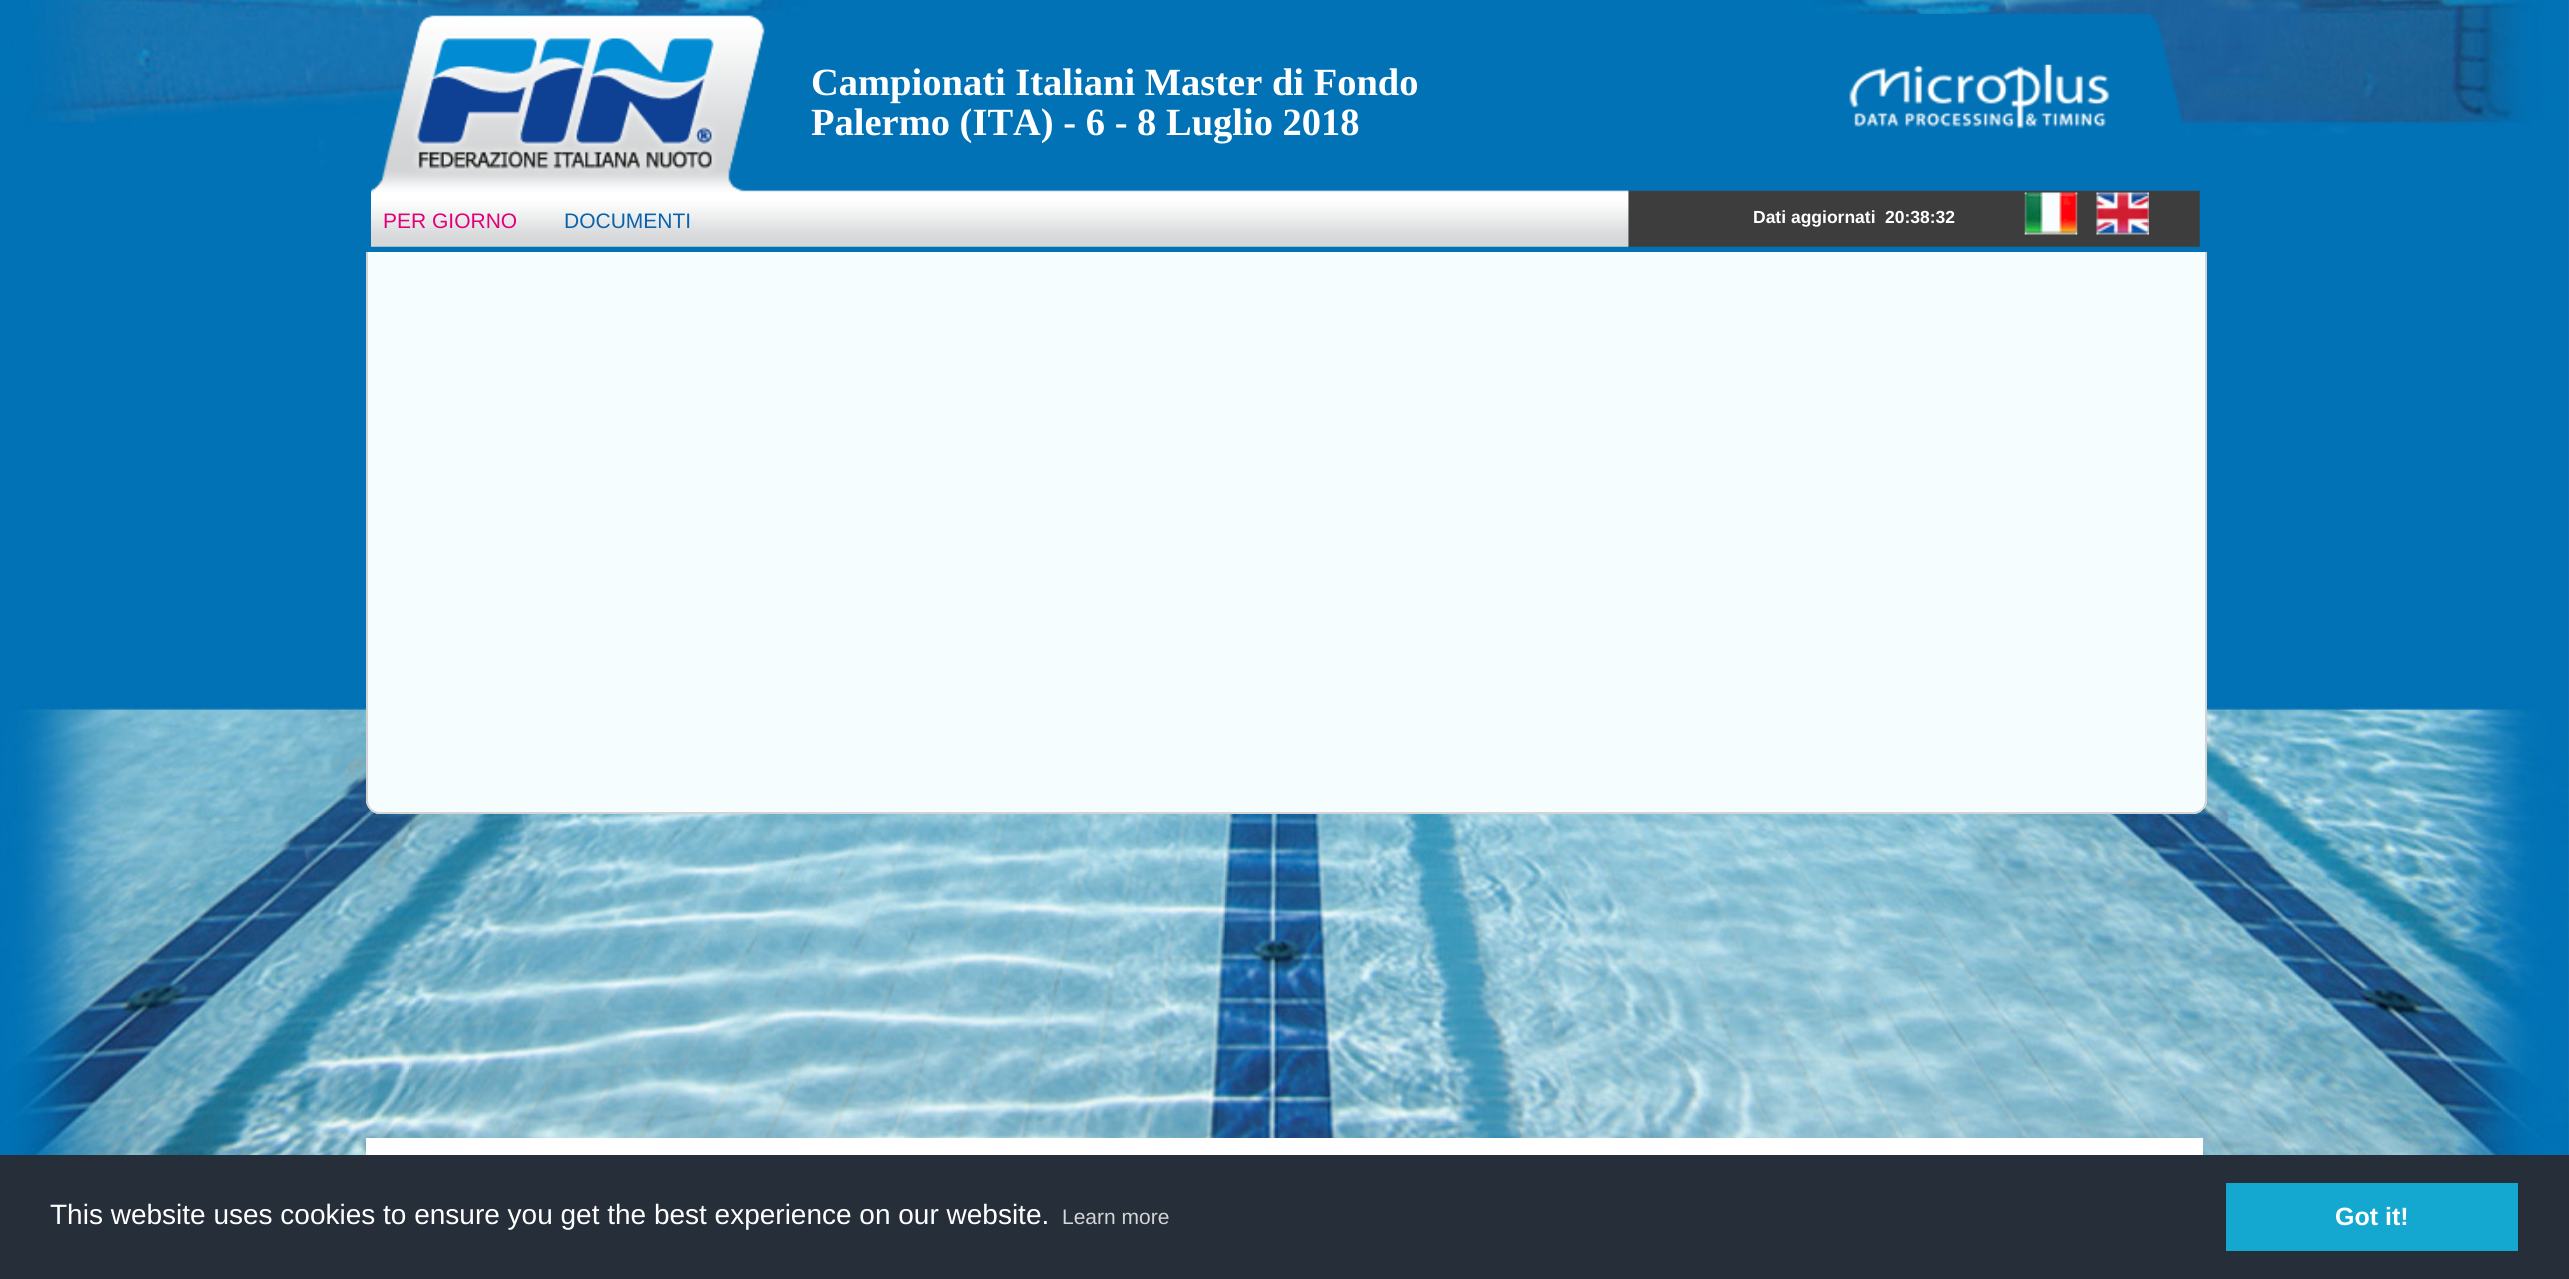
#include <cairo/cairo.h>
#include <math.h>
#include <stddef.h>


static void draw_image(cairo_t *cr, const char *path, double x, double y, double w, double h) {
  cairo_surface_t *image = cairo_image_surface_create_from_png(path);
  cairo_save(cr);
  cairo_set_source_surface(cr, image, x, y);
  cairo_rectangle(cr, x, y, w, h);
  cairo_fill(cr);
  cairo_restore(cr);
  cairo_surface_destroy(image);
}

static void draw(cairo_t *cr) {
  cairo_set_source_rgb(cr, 1, 1, 1);
  cairo_paint(cr);
  draw_image(cr, "images/1.png", 2568, 0, 1, 1155);
  draw_image(cr, "images/2.png", 0, 0, 2569, 1155);
  draw_image(cr, "images/3.png", 371, 14, 1829, 233);
  draw_image(cr, "images/4.png", 1849, 64, 261, 65);
  draw_image(cr, "images/5.png", 2024, 192, 54, 43);
  draw_image(cr, "images/6.png", 2096, 192, 53, 43);
  cairo_set_source_rgb(cr, 246 / 255.0, 253 / 255.0, 1);
  cairo_new_path(cr);
  cairo_move_to(cr, 366, 252);
  cairo_line_to(cr, 2207, 252);
  cairo_line_to(cr, 2207, 800);
  cairo_curve_to(cr, 2207, 807.5, 2200.5, 814, 2193, 814);
  cairo_line_to(cr, 380, 814);
  cairo_curve_to(cr, 372.5, 814, 366, 807.5, 366, 800);
  cairo_close_path(cr);
  cairo_fill(cr);
  cairo_set_source_rgb(cr, 211 / 255.0, 211 / 255.0, 211 / 255.0);
  cairo_set_fill_rule(cr, CAIRO_FILL_RULE_EVEN_ODD);
  cairo_new_path(cr);
  cairo_move_to(cr, 366, 252);
  cairo_line_to(cr, 2207, 252);
  cairo_line_to(cr, 2207, 800);
  cairo_curve_to(cr, 2207, 807, 2200, 814, 2193, 814);
  cairo_line_to(cr, 380, 814);
  cairo_curve_to(cr, 372, 814, 366, 807, 366, 800);
  cairo_close_path(cr);
  cairo_move_to(cr, 368, 252);
  cairo_line_to(cr, 2205, 252);
  cairo_line_to(cr, 2205, 800);
  cairo_curve_to(cr, 2205, 807, 2200, 812, 2193, 812);
  cairo_line_to(cr, 380, 812);
  cairo_curve_to(cr, 373, 812, 368, 807, 368, 800);
  cairo_close_path(cr);
  cairo_fill(cr);
  cairo_set_source_rgb(cr, 1, 1, 1);
  cairo_rectangle(cr, 366, 1138, 1837, 17);
  cairo_fill(cr);
  cairo_set_source_rgb(cr, 37 / 255.0, 46 / 255.0, 57 / 255.0);
  cairo_rectangle(cr, 0, 1155, 2569, 124);
  cairo_fill(cr);
  cairo_set_source_rgb(cr, 20 / 255.0, 167 / 255.0, 208 / 255.0);
  cairo_rectangle(cr, 2226, 1183, 292, 68);
  cairo_fill(cr);
  cairo_select_font_face(cr, "Liberation Serif", CAIRO_FONT_SLANT_NORMAL, CAIRO_FONT_WEIGHT_BOLD);
  cairo_set_font_size(cr, 38.5);
  cairo_set_source_rgb(cr, 1, 1, 1);
  cairo_move_to(cr, 811, 95);
  cairo_show_text(cr, "Campionati Italiani Master di Fondo");
  cairo_move_to(cr, 811, 135);
  cairo_show_text(cr, "Palermo (ITA) - 6 - 8 Luglio 2018");
  cairo_select_font_face(cr, "Liberation Sans", CAIRO_FONT_SLANT_NORMAL, CAIRO_FONT_WEIGHT_NORMAL);
  cairo_set_font_size(cr, 21);
  cairo_set_source_rgb(cr, 225 / 255.0, 0, 122 / 255.0);
  cairo_move_to(cr, 383, 228);
  cairo_show_text(cr, "PER GIORNO");
  cairo_set_source_rgb(cr, 10 / 255.0, 98 / 255.0, 172 / 255.0);
  cairo_move_to(cr, 564, 228);
  cairo_show_text(cr, "DOCUMENTI");
  cairo_select_font_face(cr, "Liberation Sans", CAIRO_FONT_SLANT_NORMAL, CAIRO_FONT_WEIGHT_BOLD);
  cairo_set_font_size(cr, 17.5);
  cairo_set_source_rgb(cr, 1, 1, 1);
  cairo_move_to(cr, 1753, 223);
  cairo_show_text(cr, "Dati aggiornati");
  cairo_move_to(cr, 1885, 223);
  cairo_show_text(cr, "20:38:32");
  cairo_select_font_face(cr, "Liberation Sans", CAIRO_FONT_SLANT_NORMAL, CAIRO_FONT_WEIGHT_NORMAL);
  cairo_set_font_size(cr, 28);
  cairo_move_to(cr, 50, 1224);
  cairo_show_text(cr, "This website uses cookies to ensure you get the best experience on our website.");
  cairo_set_font_size(cr, 21);
  cairo_set_source_rgb(cr, 211 / 255.0, 213 / 255.0, 215 / 255.0);
  cairo_move_to(cr, 1062, 1224);
  cairo_show_text(cr, "Learn more");
  cairo_select_font_face(cr, "Liberation Sans", CAIRO_FONT_SLANT_NORMAL, CAIRO_FONT_WEIGHT_BOLD);
  cairo_set_font_size(cr, 25);
  cairo_set_source_rgb(cr, 1, 1, 1);
  cairo_move_to(cr, 2335, 1225);
  cairo_show_text(cr, "Got it!");
}

int main(void) {
  cairo_surface_t *surface = cairo_image_surface_create(CAIRO_FORMAT_RGB24, 2569, 1279);
  cairo_t *cr = cairo_create(surface);
  cairo_font_options_t *options = cairo_font_options_create();
  cairo_font_options_set_hint_metrics(options, CAIRO_HINT_METRICS_OFF);
  cairo_font_options_set_hint_style(options, CAIRO_HINT_STYLE_NONE);
  cairo_set_font_options(cr, options);
  cairo_set_miter_limit(cr, 4);
  draw(cr);
  cairo_surface_write_to_png(surface, "out.png");
  cairo_font_options_destroy(options);
  cairo_destroy(cr);
  cairo_surface_destroy(surface);
  return 0;
}
